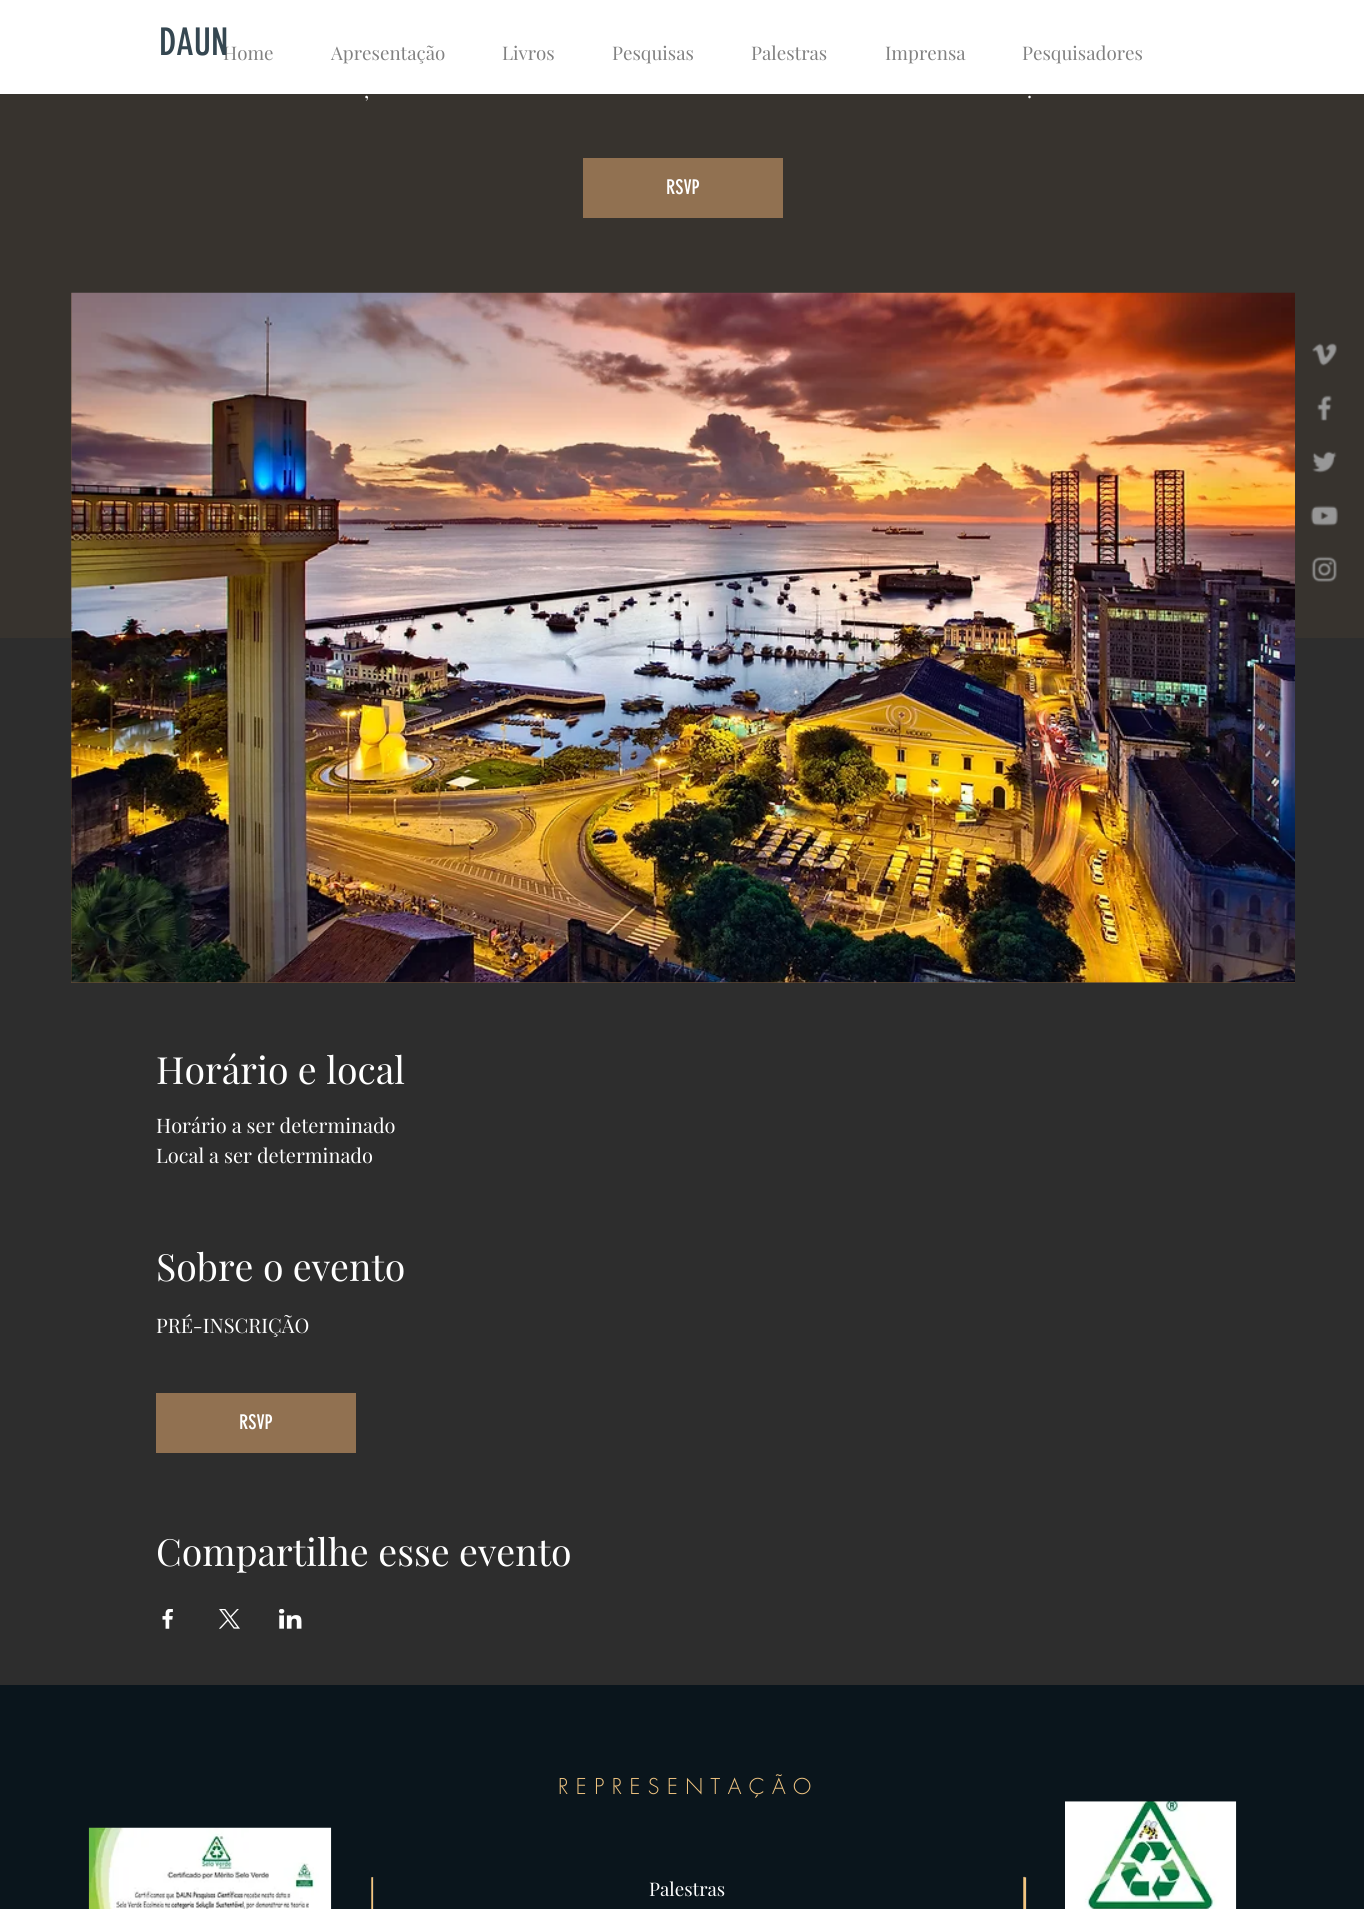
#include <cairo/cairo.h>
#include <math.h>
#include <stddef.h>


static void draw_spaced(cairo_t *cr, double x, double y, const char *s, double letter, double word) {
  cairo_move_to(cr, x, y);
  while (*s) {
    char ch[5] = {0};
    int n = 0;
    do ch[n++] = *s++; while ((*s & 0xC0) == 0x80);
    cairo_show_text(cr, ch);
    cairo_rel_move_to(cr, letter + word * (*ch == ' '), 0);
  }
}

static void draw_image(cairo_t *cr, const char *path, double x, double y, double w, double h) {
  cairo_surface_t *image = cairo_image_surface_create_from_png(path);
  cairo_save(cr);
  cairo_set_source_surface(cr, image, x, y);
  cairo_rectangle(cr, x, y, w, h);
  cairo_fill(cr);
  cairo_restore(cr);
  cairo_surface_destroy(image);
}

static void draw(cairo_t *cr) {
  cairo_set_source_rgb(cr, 45 / 255.0, 45 / 255.0, 45 / 255.0);
  cairo_paint(cr);
  cairo_set_source_rgb(cr, 1, 1, 1);
  cairo_rectangle(cr, 0, 0, 1364, 94);
  cairo_fill(cr);
  cairo_set_source_rgb(cr, 55 / 255.0, 51 / 255.0, 46 / 255.0);
  cairo_rectangle(cr, 0, 94, 1364, 544);
  cairo_fill(cr);
  cairo_set_source_rgb(cr, 145 / 255.0, 113 / 255.0, 81 / 255.0);
  cairo_rectangle(cr, 583, 158, 200, 60);
  cairo_fill(cr);
  cairo_set_source_rgb(cr, 97 / 255.0, 75 / 255.0, 54 / 255.0);
  cairo_rectangle(cr, 71, 293, 1224, 690);
  cairo_fill(cr);
  draw_image(cr, "images/1.png", 71, 292, 1224, 691);
  cairo_set_source_rgb(cr, 145 / 255.0, 113 / 255.0, 81 / 255.0);
  cairo_rectangle(cr, 156, 1393, 200, 60);
  cairo_fill(cr);
  draw_image(cr, "images/2.png", 162, 1609, 11, 20);
  draw_image(cr, "images/3.png", 219, 1609, 21, 20);
  draw_image(cr, "images/4.png", 279, 1609, 23, 20);
  draw_image(cr, "images/5.png", 1312, 343, 25, 23);
  draw_image(cr, "images/6.png", 1317, 395, 15, 26);
  draw_image(cr, "images/7.png", 1312, 451, 25, 22);
  draw_image(cr, "images/8.png", 1310, 505, 28, 21);
  draw_image(cr, "images/9.png", 1311, 556, 26, 26);
  cairo_set_source_rgb(cr, 10 / 255.0, 21 / 255.0, 28 / 255.0);
  cairo_rectangle(cr, 0, 1685, 1364, 224);
  cairo_fill(cr);
  draw_image(cr, "images/10.png", 88, 1827, 244, 82);
  cairo_set_source_rgb(cr, 35 / 255.0, 44 / 255.0, 51 / 255.0);
  cairo_new_path(cr);
  cairo_move_to(cr, 372, 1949);
  cairo_curve_to(cr, 373, 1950, 374, 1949, 374, 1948);
  cairo_line_to(cr, 374, 1877);
  cairo_line_to(cr, 373, 1877);
  cairo_line_to(cr, 373, 1878);
  cairo_line_to(cr, 373, 1890);
  cairo_line_to(cr, 373, 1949);
  cairo_close_path(cr);
  cairo_fill(cr);
  cairo_set_source_rgb(cr, 242 / 255.0, 198 / 255.0, 130 / 255.0);
  cairo_new_path(cr);
  cairo_move_to(cr, 371, 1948);
  cairo_line_to(cr, 371, 1878);
  cairo_curve_to(cr, 371, 1877, 372, 1877, 373, 1877);
  cairo_line_to(cr, 373, 1878);
  cairo_line_to(cr, 373, 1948);
  cairo_curve_to(cr, 373, 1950, 371, 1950, 371, 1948);
  cairo_close_path(cr);
  cairo_fill(cr);
  cairo_set_source_rgba(cr, 0, 0, 0, 0.25);
  cairo_new_path(cr);
  cairo_move_to(cr, 372, 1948);
  cairo_line_to(cr, 372, 1878);
  cairo_line_to(cr, 373, 1877);
  cairo_curve_to(cr, 372, 1877, 371, 1877, 371, 1878);
  cairo_line_to(cr, 371, 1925);
  cairo_curve_to(cr, 371, 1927, 370, 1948, 371, 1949);
  cairo_line_to(cr, 372, 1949);
  cairo_close_path(cr);
  cairo_fill(cr);
  cairo_set_source_rgb(cr, 35 / 255.0, 44 / 255.0, 51 / 255.0);
  cairo_new_path(cr);
  cairo_move_to(cr, 1025, 1877);
  cairo_line_to(cr, 1026, 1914);
  cairo_curve_to(cr, 1026, 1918, 1027, 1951, 1025, 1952);
  cairo_curve_to(cr, 1026, 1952, 1027, 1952, 1027, 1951);
  cairo_line_to(cr, 1027, 1878);
  cairo_curve_to(cr, 1027, 1877, 1026, 1877, 1025, 1877);
  cairo_close_path(cr);
  cairo_fill(cr);
  cairo_set_source_rgb(cr, 242 / 255.0, 198 / 255.0, 130 / 255.0);
  cairo_new_path(cr);
  cairo_move_to(cr, 1023, 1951);
  cairo_line_to(cr, 1023, 1878);
  cairo_curve_to(cr, 1023, 1876, 1026, 1877, 1026, 1878);
  cairo_line_to(cr, 1026, 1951);
  cairo_curve_to(cr, 1026, 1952, 1023, 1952, 1023, 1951);
  cairo_close_path(cr);
  cairo_fill(cr);
  cairo_set_source_rgba(cr, 0, 0, 0, 0.25);
  cairo_new_path(cr);
  cairo_move_to(cr, 1024, 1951);
  cairo_line_to(cr, 1025, 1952);
  cairo_line_to(cr, 1023, 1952);
  cairo_curve_to(cr, 1023, 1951, 1023, 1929, 1023, 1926);
  cairo_line_to(cr, 1023, 1878);
  cairo_curve_to(cr, 1023, 1877, 1024, 1877, 1025, 1877);
  cairo_line_to(cr, 1024, 1878);
  cairo_close_path(cr);
  cairo_fill(cr);
  draw_image(cr, "images/11.png", 1065, 1801, 172, 108);
  cairo_select_font_face(cr, "Playfair Display", CAIRO_FONT_SLANT_NORMAL, CAIRO_FONT_WEIGHT_NORMAL);
  cairo_set_font_size(cr, 18.75);
  cairo_set_source_rgb(cr, 129 / 255.0, 129 / 255.0, 129 / 255.0);
  cairo_move_to(cr, 223, 60);
  cairo_show_text(cr, "Home");
  cairo_select_font_face(cr, "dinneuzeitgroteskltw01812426", CAIRO_FONT_SLANT_NORMAL, CAIRO_FONT_WEIGHT_NORMAL);
  cairo_set_font_size(cr, 37.5);
  cairo_set_source_rgb(cr, 53 / 255.0, 71 / 255.0, 81 / 255.0);
  cairo_move_to(cr, 159, 55);
  cairo_show_text(cr, "DAUN");
  cairo_select_font_face(cr, "Playfair Display", CAIRO_FONT_SLANT_NORMAL, CAIRO_FONT_WEIGHT_NORMAL);
  cairo_set_font_size(cr, 18.75);
  cairo_set_source_rgb(cr, 129 / 255.0, 129 / 255.0, 129 / 255.0);
  cairo_move_to(cr, 331, 60);
  cairo_show_text(cr, "Apresentação");
  cairo_move_to(cr, 502, 60);
  cairo_show_text(cr, "Livros");
  cairo_move_to(cr, 612, 60);
  cairo_show_text(cr, "Pesquisas");
  cairo_move_to(cr, 751, 60);
  cairo_show_text(cr, "Palestras");
  cairo_move_to(cr, 885, 60);
  cairo_show_text(cr, "Imprensa");
  cairo_move_to(cr, 1022, 60);
  cairo_show_text(cr, "Pesquisadores");
  cairo_set_font_size(cr, 20);
  cairo_set_source_rgb(cr, 1, 1, 1);
  cairo_move_to(cr, 364, 98);
  cairo_show_text(cr, ",");
  cairo_move_to(cr, 1027, 98);
  cairo_show_text(cr, ".");
  cairo_select_font_face(cr, "dinneuzeitgroteskltw01812426", CAIRO_FONT_SLANT_NORMAL, CAIRO_FONT_WEIGHT_NORMAL);
  cairo_move_to(cr, 666, 194);
  cairo_show_text(cr, "RSVP");
  cairo_select_font_face(cr, "Playfair Display", CAIRO_FONT_SLANT_NORMAL, CAIRO_FONT_WEIGHT_NORMAL);
  cairo_set_font_size(cr, 37.5);
  cairo_move_to(cr, 156, 1084);
  cairo_show_text(cr, "Horário e local");
  cairo_set_font_size(cr, 20);
  cairo_move_to(cr, 156, 1133);
  cairo_show_text(cr, "Horário a ser determinado");
  cairo_move_to(cr, 156, 1163);
  cairo_show_text(cr, "Local a ser determinado");
  cairo_set_font_size(cr, 37.5);
  cairo_move_to(cr, 156, 1281);
  cairo_show_text(cr, "Sobre o evento");
  cairo_set_font_size(cr, 20);
  cairo_move_to(cr, 156, 1333);
  cairo_show_text(cr, "PRÉ-INSCRIÇÃO");
  cairo_select_font_face(cr, "dinneuzeitgroteskltw01812426", CAIRO_FONT_SLANT_NORMAL, CAIRO_FONT_WEIGHT_NORMAL);
  cairo_move_to(cr, 239, 1429);
  cairo_show_text(cr, "RSVP");
  cairo_select_font_face(cr, "Playfair Display", CAIRO_FONT_SLANT_NORMAL, CAIRO_FONT_WEIGHT_NORMAL);
  cairo_set_font_size(cr, 37.5);
  cairo_move_to(cr, 156, 1566);
  cairo_show_text(cr, "Compartilhe esse evento");
  cairo_select_font_face(cr, "futura Light", CAIRO_FONT_SLANT_NORMAL, CAIRO_FONT_WEIGHT_NORMAL);
  cairo_set_font_size(cr, 21.25);
  cairo_set_source_rgb(cr, 242 / 255.0, 198 / 255.0, 130 / 255.0);
  draw_spaced(cr, 558, 1794, "REPRESENTAÇÃO", 7.5, 0);
  cairo_select_font_face(cr, "Playfair Display", CAIRO_FONT_SLANT_NORMAL, CAIRO_FONT_WEIGHT_NORMAL);
  cairo_set_font_size(cr, 18.75);
  cairo_set_source_rgb(cr, 1, 1, 1);
  cairo_move_to(cr, 649, 1896);
  cairo_show_text(cr, "Palestras");
}

int main(void) {
  cairo_surface_t *surface = cairo_image_surface_create(CAIRO_FORMAT_RGB24, 1364, 1909);
  cairo_t *cr = cairo_create(surface);
  cairo_font_options_t *options = cairo_font_options_create();
  cairo_font_options_set_hint_metrics(options, CAIRO_HINT_METRICS_OFF);
  cairo_font_options_set_hint_style(options, CAIRO_HINT_STYLE_NONE);
  cairo_set_font_options(cr, options);
  cairo_set_miter_limit(cr, 4);
  draw(cr);
  cairo_surface_write_to_png(surface, "out.png");
  cairo_font_options_destroy(options);
  cairo_destroy(cr);
  cairo_surface_destroy(surface);
  return 0;
}
